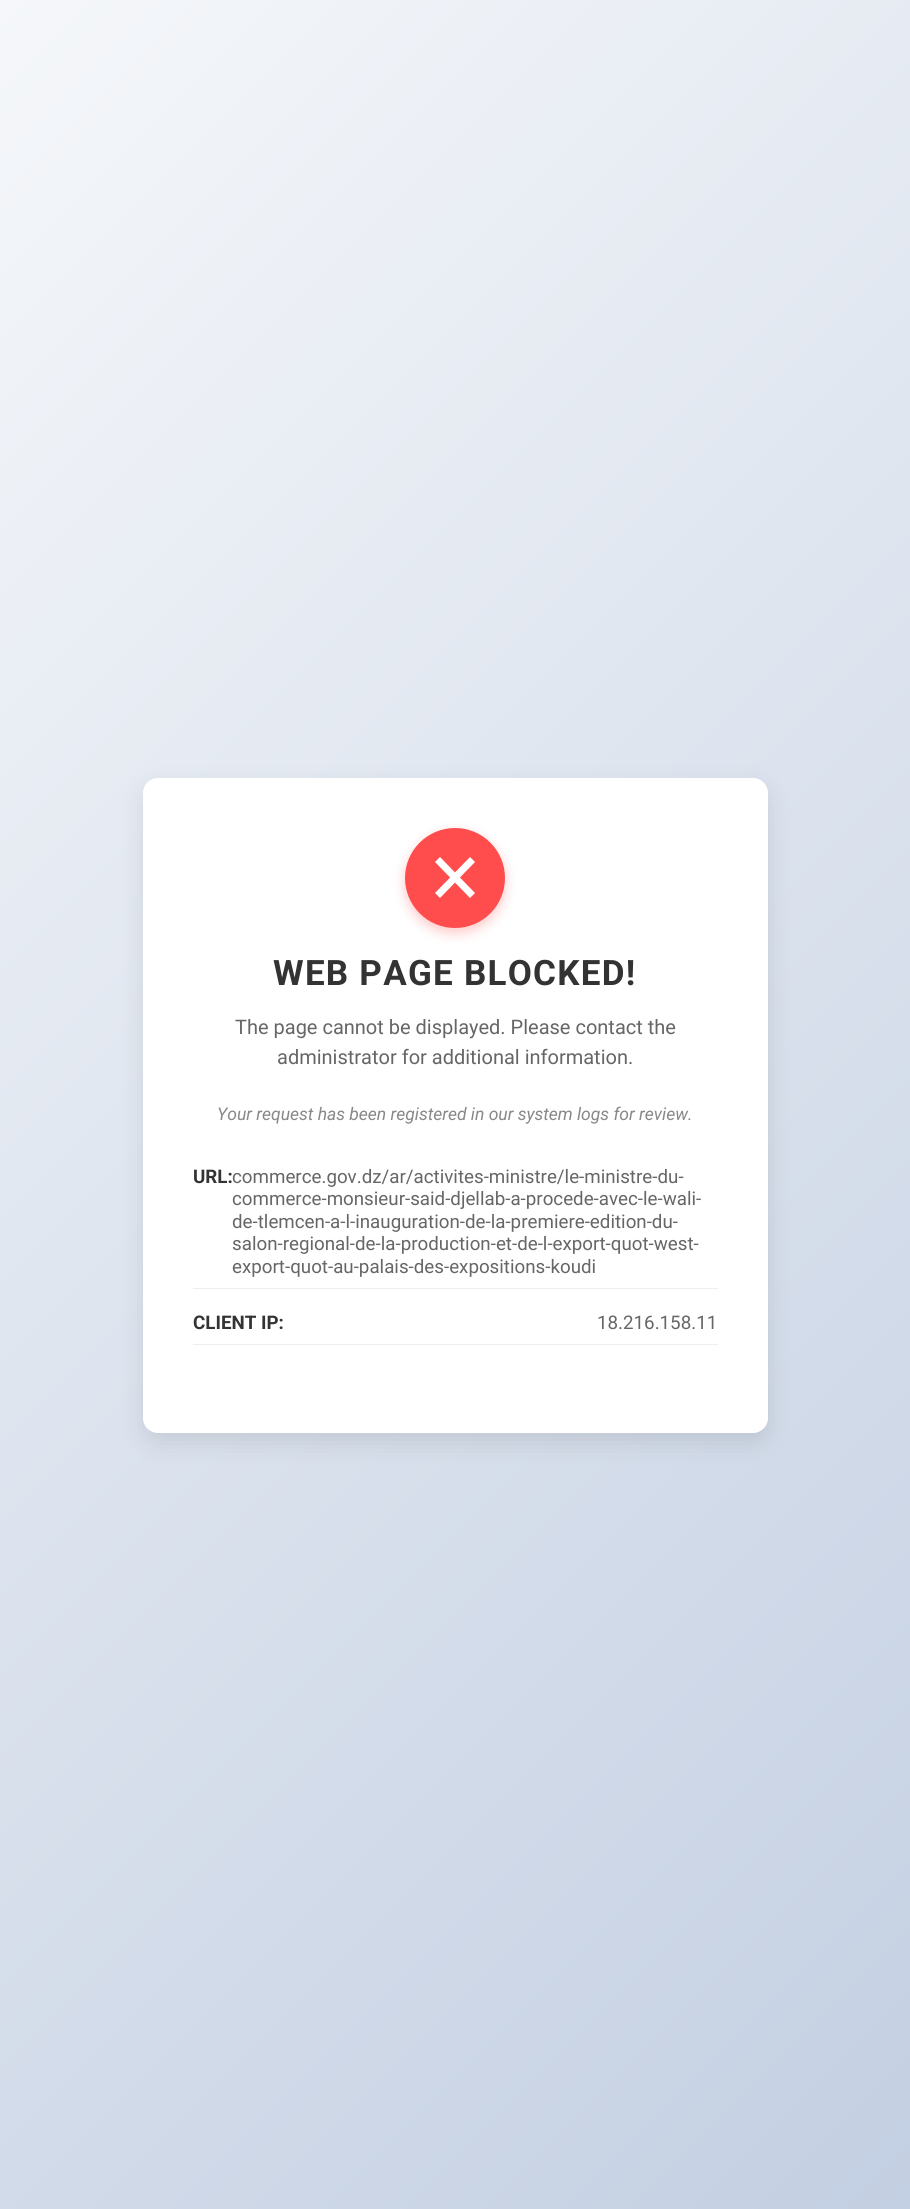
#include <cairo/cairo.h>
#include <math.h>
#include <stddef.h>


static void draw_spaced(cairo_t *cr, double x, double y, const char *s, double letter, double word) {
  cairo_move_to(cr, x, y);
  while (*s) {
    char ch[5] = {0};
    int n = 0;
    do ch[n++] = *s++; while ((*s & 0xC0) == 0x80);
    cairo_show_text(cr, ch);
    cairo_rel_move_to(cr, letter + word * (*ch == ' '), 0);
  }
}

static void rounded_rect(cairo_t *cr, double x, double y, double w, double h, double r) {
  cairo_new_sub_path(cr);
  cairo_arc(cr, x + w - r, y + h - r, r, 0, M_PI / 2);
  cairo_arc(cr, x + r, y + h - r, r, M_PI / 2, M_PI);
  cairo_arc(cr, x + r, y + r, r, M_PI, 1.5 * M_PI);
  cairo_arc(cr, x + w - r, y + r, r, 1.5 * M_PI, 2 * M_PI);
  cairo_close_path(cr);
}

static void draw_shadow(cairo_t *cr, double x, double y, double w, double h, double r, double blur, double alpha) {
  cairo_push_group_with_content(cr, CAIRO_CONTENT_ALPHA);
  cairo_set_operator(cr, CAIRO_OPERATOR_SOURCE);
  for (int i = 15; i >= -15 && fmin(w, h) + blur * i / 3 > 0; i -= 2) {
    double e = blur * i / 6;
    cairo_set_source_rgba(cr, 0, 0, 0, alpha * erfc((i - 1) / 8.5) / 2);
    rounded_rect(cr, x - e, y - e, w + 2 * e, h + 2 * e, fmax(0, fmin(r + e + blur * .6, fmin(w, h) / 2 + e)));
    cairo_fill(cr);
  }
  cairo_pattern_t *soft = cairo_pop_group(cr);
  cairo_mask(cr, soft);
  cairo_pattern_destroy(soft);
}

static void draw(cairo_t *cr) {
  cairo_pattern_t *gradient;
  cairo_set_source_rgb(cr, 1, 1, 1);
  cairo_paint(cr);
  gradient = cairo_pattern_create_linear(-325, 325, 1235, 1885);
  cairo_pattern_add_color_stop_rgba(gradient, 0, 245 / 255.0, 247 / 255.0, 250 / 255.0, 1);
  cairo_pattern_add_color_stop_rgba(gradient, 1, 195 / 255.0, 207 / 255.0, 226 / 255.0, 1);
  cairo_set_source(cr, gradient);
  cairo_pattern_destroy(gradient);
  cairo_rectangle(cr, 0, 0, 910, 2209);
  cairo_fill(cr);
  cairo_set_source_rgb(cr, 0, 0, 0);
  draw_shadow(cr, 143, 788, 625, 655, 15, 12.5, 0.1);
  cairo_set_source_rgb(cr, 1, 1, 1);
  rounded_rect(cr, 143, 778, 625, 655, 15);
  cairo_fill(cr);
  cairo_set_source_rgb(cr, 1, 77 / 255.0, 77 / 255.0);
  draw_shadow(cr, 405, 833, 100, 100, 50, 6, 0.3);
  cairo_set_source_rgb(cr, 1, 77 / 255.0, 77 / 255.0);
  cairo_arc(cr, 455, 878, 50, 0, 2 * M_PI);
  cairo_fill(cr);
  cairo_set_source_rgb(cr, 1, 1, 1);
  cairo_new_path(cr);
  cairo_move_to(cr, 440, 857);
  cairo_line_to(cr, 475, 893);
  cairo_line_to(cr, 470, 898);
  cairo_line_to(cr, 435, 862);
  cairo_close_path(cr);
  cairo_fill(cr);
  cairo_new_path(cr);
  cairo_move_to(cr, 435, 893);
  cairo_line_to(cr, 470, 857);
  cairo_line_to(cr, 475, 862);
  cairo_line_to(cr, 440, 898);
  cairo_close_path(cr);
  cairo_fill(cr);
  cairo_set_source_rgb(cr, 238 / 255.0, 238 / 255.0, 238 / 255.0);
  cairo_rectangle(cr, 193, 1288, 525, 1);
  cairo_fill(cr);
  cairo_rectangle(cr, 193, 1344, 525, 1);
  cairo_fill(cr);
  cairo_select_font_face(cr, "Roboto", CAIRO_FONT_SLANT_NORMAL, CAIRO_FONT_WEIGHT_BOLD);
  cairo_set_font_size(cr, 35);
  cairo_set_source_rgb(cr, 51 / 255.0, 51 / 255.0, 51 / 255.0);
  draw_spaced(cr, 273, 985, "WEB PAGE BLOCKED!", 1.25, 0);
  cairo_select_font_face(cr, "Roboto", CAIRO_FONT_SLANT_NORMAL, CAIRO_FONT_WEIGHT_NORMAL);
  cairo_set_font_size(cr, 20);
  cairo_set_source_rgb(cr, 102 / 255.0, 102 / 255.0, 102 / 255.0);
  cairo_move_to(cr, 235, 1034);
  cairo_show_text(cr, "The page cannot be displayed. Please contact the");
  cairo_move_to(cr, 277, 1064);
  cairo_show_text(cr, "administrator for additional information.");
  cairo_select_font_face(cr, "Roboto", CAIRO_FONT_SLANT_ITALIC, CAIRO_FONT_WEIGHT_NORMAL);
  cairo_set_font_size(cr, 17.5);
  cairo_set_source_rgb(cr, 136 / 255.0, 136 / 255.0, 136 / 255.0);
  cairo_move_to(cr, 217, 1120);
  cairo_show_text(cr, "Your request has been registered in our system logs for review.");
  cairo_select_font_face(cr, "Roboto", CAIRO_FONT_SLANT_NORMAL, CAIRO_FONT_WEIGHT_BOLD);
  cairo_set_font_size(cr, 18.75);
  cairo_set_source_rgb(cr, 51 / 255.0, 51 / 255.0, 51 / 255.0);
  cairo_move_to(cr, 193, 1183);
  cairo_show_text(cr, "URL:");
  cairo_select_font_face(cr, "Roboto", CAIRO_FONT_SLANT_NORMAL, CAIRO_FONT_WEIGHT_NORMAL);
  cairo_set_source_rgb(cr, 102 / 255.0, 102 / 255.0, 102 / 255.0);
  cairo_move_to(cr, 232, 1183);
  cairo_show_text(cr, "commerce.gov.dz/ar/activites-ministre/le-ministre-du-");
  cairo_move_to(cr, 232, 1205);
  cairo_show_text(cr, "commerce-monsieur-said-djellab-a-procede-avec-le-wali-");
  cairo_move_to(cr, 232, 1228);
  cairo_show_text(cr, "de-tlemcen-a-l-inauguration-de-la-premiere-edition-du-");
  cairo_move_to(cr, 232, 1250);
  cairo_show_text(cr, "salon-regional-de-la-production-et-de-l-export-quot-west-");
  cairo_move_to(cr, 232, 1273);
  cairo_show_text(cr, "export-quot-au-palais-des-expositions-koudi");
  cairo_select_font_face(cr, "Roboto", CAIRO_FONT_SLANT_NORMAL, CAIRO_FONT_WEIGHT_BOLD);
  cairo_set_source_rgb(cr, 51 / 255.0, 51 / 255.0, 51 / 255.0);
  cairo_move_to(cr, 193, 1329);
  cairo_show_text(cr, "CLIENT IP:");
  cairo_select_font_face(cr, "Roboto", CAIRO_FONT_SLANT_NORMAL, CAIRO_FONT_WEIGHT_NORMAL);
  cairo_set_source_rgb(cr, 102 / 255.0, 102 / 255.0, 102 / 255.0);
  cairo_move_to(cr, 597, 1329);
  cairo_show_text(cr, "18.216.158.11");
}

int main(void) {
  cairo_surface_t *surface = cairo_image_surface_create(CAIRO_FORMAT_RGB24, 910, 2209);
  cairo_t *cr = cairo_create(surface);
  cairo_font_options_t *options = cairo_font_options_create();
  cairo_font_options_set_hint_metrics(options, CAIRO_HINT_METRICS_OFF);
  cairo_font_options_set_hint_style(options, CAIRO_HINT_STYLE_NONE);
  cairo_set_font_options(cr, options);
  cairo_set_miter_limit(cr, 4);
  draw(cr);
  cairo_surface_write_to_png(surface, "out.png");
  cairo_font_options_destroy(options);
  cairo_destroy(cr);
  cairo_surface_destroy(surface);
  return 0;
}
